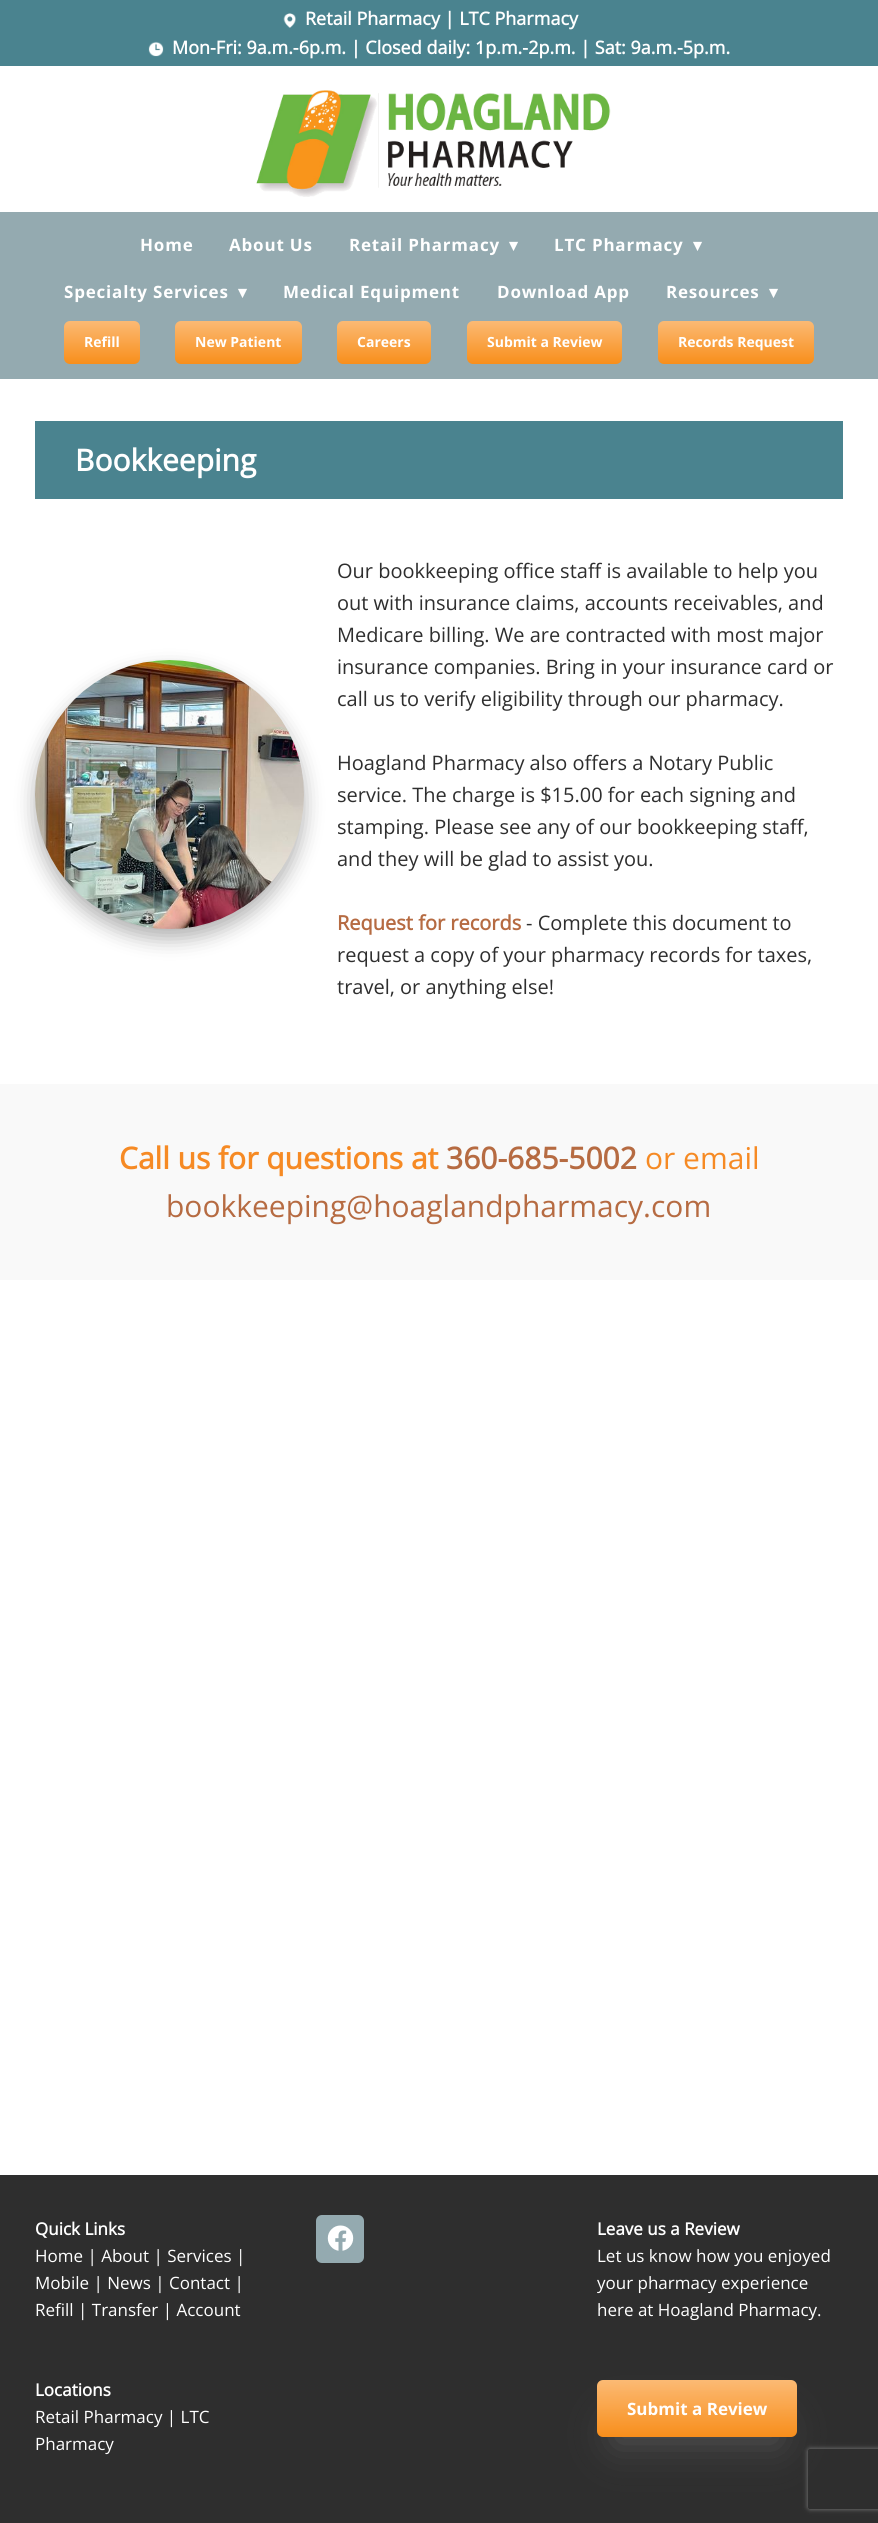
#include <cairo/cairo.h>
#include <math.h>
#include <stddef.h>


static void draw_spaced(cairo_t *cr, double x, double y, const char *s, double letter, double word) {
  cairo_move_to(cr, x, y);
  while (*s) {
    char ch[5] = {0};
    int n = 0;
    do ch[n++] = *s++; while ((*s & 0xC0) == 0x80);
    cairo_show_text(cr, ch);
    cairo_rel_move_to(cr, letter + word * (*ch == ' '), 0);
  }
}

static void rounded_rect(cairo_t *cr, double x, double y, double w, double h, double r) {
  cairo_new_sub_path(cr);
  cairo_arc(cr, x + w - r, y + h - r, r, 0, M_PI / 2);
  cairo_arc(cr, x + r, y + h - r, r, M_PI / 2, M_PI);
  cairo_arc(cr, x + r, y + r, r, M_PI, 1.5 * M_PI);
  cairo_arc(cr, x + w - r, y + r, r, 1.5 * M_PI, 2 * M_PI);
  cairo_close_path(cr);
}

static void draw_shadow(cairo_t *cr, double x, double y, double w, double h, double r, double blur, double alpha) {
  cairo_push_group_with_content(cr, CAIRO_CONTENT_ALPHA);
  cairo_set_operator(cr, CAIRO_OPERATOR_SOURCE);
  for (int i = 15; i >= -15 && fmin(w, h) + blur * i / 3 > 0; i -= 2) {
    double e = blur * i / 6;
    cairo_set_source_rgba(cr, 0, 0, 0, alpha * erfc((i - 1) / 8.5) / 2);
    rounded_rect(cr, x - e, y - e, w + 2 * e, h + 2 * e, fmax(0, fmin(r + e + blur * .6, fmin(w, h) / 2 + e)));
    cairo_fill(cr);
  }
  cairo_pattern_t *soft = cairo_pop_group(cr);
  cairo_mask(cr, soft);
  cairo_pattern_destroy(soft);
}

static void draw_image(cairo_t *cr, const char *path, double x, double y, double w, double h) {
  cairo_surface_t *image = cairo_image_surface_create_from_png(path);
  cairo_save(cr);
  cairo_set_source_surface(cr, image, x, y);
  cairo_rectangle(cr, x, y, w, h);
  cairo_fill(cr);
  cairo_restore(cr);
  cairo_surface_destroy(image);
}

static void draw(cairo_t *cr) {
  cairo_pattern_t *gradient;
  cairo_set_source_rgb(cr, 1, 1, 1);
  cairo_paint(cr);
  cairo_set_source_rgb(cr, 74 / 255.0, 131 / 255.0, 143 / 255.0);
  cairo_rectangle(cr, 0, 0, 878, 66);
  cairo_fill(cr);
  draw_image(cr, "images/1.png", 283, 13, 13, 15);
  draw_image(cr, "images/2.png", 148, 41, 16, 16);
  draw_image(cr, "images/3.png", 256, 90, 355, 107);
  cairo_set_source_rgb(cr, 148 / 255.0, 170 / 255.0, 176 / 255.0);
  cairo_rectangle(cr, 0, 212, 878, 167);
  cairo_fill(cr);
  gradient = cairo_pattern_create_linear(102, 321, 102, 364);
  cairo_pattern_add_color_stop_rgba(gradient, 0, 251 / 255.0, 186 / 255.0, 116 / 255.0, 1);
  cairo_pattern_add_color_stop_rgba(gradient, 1, 248 / 255.0, 142 / 255.0, 27 / 255.0, 1);
  cairo_set_source(cr, gradient);
  cairo_pattern_destroy(gradient);
  rounded_rect(cr, 64, 321, 76, 43, 6);
  cairo_fill(cr);
  gradient = cairo_pattern_create_linear(239, 321, 239, 364);
  cairo_pattern_add_color_stop_rgba(gradient, 0, 251 / 255.0, 186 / 255.0, 116 / 255.0, 1);
  cairo_pattern_add_color_stop_rgba(gradient, 1, 248 / 255.0, 142 / 255.0, 27 / 255.0, 1);
  cairo_set_source(cr, gradient);
  cairo_pattern_destroy(gradient);
  rounded_rect(cr, 175, 321, 127, 43, 6);
  cairo_fill(cr);
  gradient = cairo_pattern_create_linear(384, 321, 384, 364);
  cairo_pattern_add_color_stop_rgba(gradient, 0, 251 / 255.0, 186 / 255.0, 116 / 255.0, 1);
  cairo_pattern_add_color_stop_rgba(gradient, 1, 248 / 255.0, 142 / 255.0, 27 / 255.0, 1);
  cairo_set_source(cr, gradient);
  cairo_pattern_destroy(gradient);
  rounded_rect(cr, 337, 321, 94, 43, 6);
  cairo_fill(cr);
  gradient = cairo_pattern_create_linear(545, 321, 545, 364);
  cairo_pattern_add_color_stop_rgba(gradient, 0, 251 / 255.0, 186 / 255.0, 116 / 255.0, 1);
  cairo_pattern_add_color_stop_rgba(gradient, 1, 248 / 255.0, 142 / 255.0, 27 / 255.0, 1);
  cairo_set_source(cr, gradient);
  cairo_pattern_destroy(gradient);
  rounded_rect(cr, 467, 321, 155, 43, 6);
  cairo_fill(cr);
  gradient = cairo_pattern_create_linear(736, 321, 736, 364);
  cairo_pattern_add_color_stop_rgba(gradient, 0, 251 / 255.0, 186 / 255.0, 116 / 255.0, 1);
  cairo_pattern_add_color_stop_rgba(gradient, 1, 248 / 255.0, 142 / 255.0, 27 / 255.0, 1);
  cairo_set_source(cr, gradient);
  cairo_pattern_destroy(gradient);
  rounded_rect(cr, 658, 321, 156, 43, 6);
  cairo_fill(cr);
  cairo_set_source_rgb(cr, 74 / 255.0, 131 / 255.0, 143 / 255.0);
  cairo_rectangle(cr, 35, 421, 808, 78);
  cairo_fill(cr);
  cairo_set_source_rgb(cr, 0, 0, 0);
  draw_shadow(cr, 35, 670, 269, 269, 134.5, 10, 0.3);
  draw_image(cr, "images/4.png", 35, 660, 269, 269);
  cairo_set_source_rgb(cr, 249 / 255.0, 249 / 255.0, 249 / 255.0);
  cairo_rectangle(cr, 0, 1084, 878, 196);
  cairo_fill(cr);
  cairo_set_source_rgb(cr, 46 / 255.0, 46 / 255.0, 46 / 255.0);
  cairo_rectangle(cr, 0, 2175, 878, 348);
  cairo_fill(cr);
  cairo_set_source_rgb(cr, 148 / 255.0, 170 / 255.0, 176 / 255.0);
  rounded_rect(cr, 316, 2215, 48, 48, 6);
  cairo_fill(cr);
  draw_image(cr, "images/5.png", 327, 2225, 27, 26);
  cairo_set_source_rgb(cr, 85 / 255.0, 85 / 255.0, 85 / 255.0);
  draw_shadow(cr, 617, 2425, 160, 17, 0, 20, 1);
  gradient = cairo_pattern_create_linear(697, 2380, 697, 2437);
  cairo_pattern_add_color_stop_rgba(gradient, 0, 251 / 255.0, 186 / 255.0, 116 / 255.0, 1);
  cairo_pattern_add_color_stop_rgba(gradient, 1, 248 / 255.0, 142 / 255.0, 27 / 255.0, 1);
  cairo_set_source(cr, gradient);
  cairo_pattern_destroy(gradient);
  rounded_rect(cr, 597, 2380, 200, 57, 6);
  cairo_fill(cr);
  cairo_save(cr);
  cairo_set_fill_rule(cr, CAIRO_FILL_RULE_EVEN_ODD);
  cairo_new_path(cr);
  cairo_move_to(cr, 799, 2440);
  cairo_line_to(cr, 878, 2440);
  cairo_line_to(cr, 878, 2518);
  cairo_line_to(cr, 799, 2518);
  cairo_close_path(cr);
  cairo_move_to(cr, 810, 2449);
  cairo_line_to(cr, 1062, 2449);
  cairo_curve_to(cr, 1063, 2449, 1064, 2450, 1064, 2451);
  cairo_line_to(cr, 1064, 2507);
  cairo_curve_to(cr, 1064, 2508, 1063, 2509, 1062, 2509);
  cairo_line_to(cr, 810, 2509);
  cairo_curve_to(cr, 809, 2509, 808, 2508, 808, 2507);
  cairo_line_to(cr, 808, 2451);
  cairo_curve_to(cr, 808, 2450, 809, 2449, 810, 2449);
  cairo_close_path(cr);
  cairo_clip(cr);
  cairo_set_source_rgb(cr, 128 / 255.0, 128 / 255.0, 128 / 255.0);
  draw_shadow(cr, 808, 2449, 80, 60, 2, 2.5, 1);
  cairo_restore(cr);
  cairo_select_font_face(cr, "Open Sans", CAIRO_FONT_SLANT_NORMAL, CAIRO_FONT_WEIGHT_BOLD);
  cairo_set_font_size(cr, 18);
  cairo_set_source_rgb(cr, 1, 1, 1);
  cairo_move_to(cr, 305, 25);
  cairo_show_text(cr, "Retail Pharmacy | LTC Pharmacy");
  cairo_move_to(cr, 172, 54);
  cairo_show_text(cr, "Mon-Fri: 9a.m.-6p.m. | Closed daily: 1p.m.-2p.m. | Sat: 9a.m.-5p.m.");
  cairo_select_font_face(cr, "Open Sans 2", CAIRO_FONT_SLANT_NORMAL, CAIRO_FONT_WEIGHT_BOLD);
  cairo_set_font_size(cr, 17);
  draw_spaced(cr, 140, 251, "Home", 0.8, 0);
  draw_spaced(cr, 229, 251, "About Us", 0.8, 0);
  draw_spaced(cr, 349, 251, "Retail Pharmacy", 0.8, 0);
  cairo_select_font_face(cr, "DejaVu Sans", CAIRO_FONT_SLANT_NORMAL, CAIRO_FONT_WEIGHT_BOLD);
  draw_spaced(cr, 509, 251, "▾", 0.8, 0);
  cairo_select_font_face(cr, "Open Sans 2", CAIRO_FONT_SLANT_NORMAL, CAIRO_FONT_WEIGHT_BOLD);
  draw_spaced(cr, 554, 251, "LTC Pharmacy", 0.8, 0);
  cairo_select_font_face(cr, "DejaVu Sans", CAIRO_FONT_SLANT_NORMAL, CAIRO_FONT_WEIGHT_BOLD);
  draw_spaced(cr, 693, 251, "▾", 0.8, 0);
  cairo_select_font_face(cr, "Open Sans 2", CAIRO_FONT_SLANT_NORMAL, CAIRO_FONT_WEIGHT_BOLD);
  draw_spaced(cr, 64, 298, "Specialty Services", 0.8, 0);
  cairo_select_font_face(cr, "DejaVu Sans", CAIRO_FONT_SLANT_NORMAL, CAIRO_FONT_WEIGHT_BOLD);
  draw_spaced(cr, 238, 298, "▾", 0.8, 0);
  cairo_select_font_face(cr, "Open Sans 2", CAIRO_FONT_SLANT_NORMAL, CAIRO_FONT_WEIGHT_BOLD);
  draw_spaced(cr, 283, 298, "Medical Equipment", 0.8, 0);
  draw_spaced(cr, 497, 298, "Download App", 0.8, 0);
  draw_spaced(cr, 666, 298, "Resources", 0.8, 0);
  cairo_select_font_face(cr, "DejaVu Sans", CAIRO_FONT_SLANT_NORMAL, CAIRO_FONT_WEIGHT_BOLD);
  draw_spaced(cr, 769, 298, "▾", 0.8, 0);
  cairo_select_font_face(cr, "Open Sans 2", CAIRO_FONT_SLANT_NORMAL, CAIRO_FONT_WEIGHT_BOLD);
  cairo_set_font_size(cr, 14);
  cairo_move_to(cr, 84, 347);
  cairo_show_text(cr, "Refill");
  cairo_move_to(cr, 195, 347);
  cairo_show_text(cr, "New Patient");
  cairo_move_to(cr, 357, 347);
  cairo_show_text(cr, "Careers");
  cairo_move_to(cr, 487, 347);
  cairo_show_text(cr, "Submit a Review");
  cairo_move_to(cr, 678, 347);
  cairo_show_text(cr, "Records Request");
  cairo_select_font_face(cr, "Open Sans", CAIRO_FONT_SLANT_NORMAL, CAIRO_FONT_WEIGHT_BOLD);
  cairo_set_font_size(cr, 30);
  cairo_move_to(cr, 75, 471);
  cairo_show_text(cr, "Bookkeeping");
  cairo_select_font_face(cr, "Open Sans", CAIRO_FONT_SLANT_NORMAL, CAIRO_FONT_WEIGHT_NORMAL);
  cairo_set_font_size(cr, 20);
  cairo_set_source_rgb(cr, 46 / 255.0, 46 / 255.0, 46 / 255.0);
  cairo_move_to(cr, 337, 578);
  cairo_show_text(cr, "Our bookkeeping office staff is available to help you");
  cairo_move_to(cr, 337, 610);
  cairo_show_text(cr, "out with insurance claims, accounts receivables, and");
  cairo_move_to(cr, 337, 642);
  cairo_show_text(cr, "Medicare billing. We are contracted with most major");
  cairo_move_to(cr, 337, 674);
  cairo_show_text(cr, "insurance companies. Bring in your insurance card or");
  cairo_move_to(cr, 337, 706);
  cairo_show_text(cr, "call us to verify eligibility through our pharmacy.");
  cairo_move_to(cr, 337, 770);
  cairo_show_text(cr, "Hoagland Pharmacy also offers a Notary Public");
  cairo_move_to(cr, 337, 802);
  cairo_show_text(cr, "service. The charge is $15.00 for each signing and");
  cairo_move_to(cr, 337, 834);
  cairo_show_text(cr, "stamping. Please see any of our bookkeeping staff,");
  cairo_move_to(cr, 337, 866);
  cairo_show_text(cr, "and they will be glad to assist you.");
  cairo_select_font_face(cr, "Open Sans", CAIRO_FONT_SLANT_NORMAL, CAIRO_FONT_WEIGHT_BOLD);
  cairo_set_source_rgb(cr, 182 / 255.0, 107 / 255.0, 66 / 255.0);
  cairo_move_to(cr, 337, 930);
  cairo_show_text(cr, "Request for records");
  cairo_select_font_face(cr, "Open Sans", CAIRO_FONT_SLANT_NORMAL, CAIRO_FONT_WEIGHT_NORMAL);
  cairo_set_source_rgb(cr, 46 / 255.0, 46 / 255.0, 46 / 255.0);
  cairo_move_to(cr, 526, 930);
  cairo_show_text(cr, "- Complete this document to");
  cairo_move_to(cr, 337, 962);
  cairo_show_text(cr, "request a copy of your pharmacy records for taxes,");
  cairo_move_to(cr, 337, 994);
  cairo_show_text(cr, "travel, or anything else!");
  cairo_select_font_face(cr, "Open Sans", CAIRO_FONT_SLANT_NORMAL, CAIRO_FONT_WEIGHT_BOLD);
  cairo_set_font_size(cr, 30);
  cairo_set_source_rgb(cr, 246 / 255.0, 138 / 255.0, 36 / 255.0);
  cairo_move_to(cr, 119, 1169);
  cairo_show_text(cr, "Call us for questions at");
  cairo_set_source_rgb(cr, 182 / 255.0, 107 / 255.0, 66 / 255.0);
  cairo_move_to(cr, 446, 1169);
  cairo_show_text(cr, "360-685-5002");
  cairo_select_font_face(cr, "Open Sans", CAIRO_FONT_SLANT_NORMAL, CAIRO_FONT_WEIGHT_NORMAL);
  cairo_set_source_rgb(cr, 246 / 255.0, 138 / 255.0, 36 / 255.0);
  cairo_move_to(cr, 645, 1169);
  cairo_show_text(cr, "or email");
  cairo_set_source_rgb(cr, 182 / 255.0, 107 / 255.0, 66 / 255.0);
  cairo_move_to(cr, 166, 1217);
  cairo_show_text(cr, "bookkeeping@hoaglandpharmacy.com");
  cairo_select_font_face(cr, "Open Sans", CAIRO_FONT_SLANT_NORMAL, CAIRO_FONT_WEIGHT_BOLD);
  cairo_set_font_size(cr, 17);
  cairo_set_source_rgb(cr, 1, 1, 1);
  cairo_move_to(cr, 35, 2235);
  cairo_show_text(cr, "Quick Links");
  cairo_select_font_face(cr, "Open Sans", CAIRO_FONT_SLANT_NORMAL, CAIRO_FONT_WEIGHT_NORMAL);
  cairo_move_to(cr, 35, 2262);
  cairo_show_text(cr, "Home | About | Services |");
  cairo_move_to(cr, 35, 2289);
  cairo_show_text(cr, "Mobile | News | Contact |");
  cairo_move_to(cr, 35, 2316);
  cairo_show_text(cr, "Refill | Transfer | Account");
  cairo_select_font_face(cr, "Open Sans", CAIRO_FONT_SLANT_NORMAL, CAIRO_FONT_WEIGHT_BOLD);
  cairo_move_to(cr, 597, 2235);
  cairo_show_text(cr, "Leave us a Review");
  cairo_select_font_face(cr, "Open Sans", CAIRO_FONT_SLANT_NORMAL, CAIRO_FONT_WEIGHT_NORMAL);
  cairo_move_to(cr, 597, 2262);
  cairo_show_text(cr, "Let us know how you enjoyed");
  cairo_move_to(cr, 597, 2289);
  cairo_show_text(cr, "your pharmacy experience");
  cairo_move_to(cr, 597, 2316);
  cairo_show_text(cr, "here at Hoagland Pharmacy.");
  cairo_select_font_face(cr, "Open Sans", CAIRO_FONT_SLANT_NORMAL, CAIRO_FONT_WEIGHT_BOLD);
  cairo_move_to(cr, 35, 2396);
  cairo_show_text(cr, "Locations");
  cairo_select_font_face(cr, "Open Sans", CAIRO_FONT_SLANT_NORMAL, CAIRO_FONT_WEIGHT_NORMAL);
  cairo_move_to(cr, 35, 2423);
  cairo_show_text(cr, "Retail Pharmacy | LTC");
  cairo_move_to(cr, 35, 2450);
  cairo_show_text(cr, "Pharmacy");
  cairo_select_font_face(cr, "Open Sans 2", CAIRO_FONT_SLANT_NORMAL, CAIRO_FONT_WEIGHT_BOLD);
  cairo_move_to(cr, 627, 2415);
  cairo_show_text(cr, "Submit a Review");
}

int main(void) {
  cairo_surface_t *surface = cairo_image_surface_create(CAIRO_FORMAT_RGB24, 878, 2523);
  cairo_t *cr = cairo_create(surface);
  cairo_font_options_t *options = cairo_font_options_create();
  cairo_font_options_set_hint_metrics(options, CAIRO_HINT_METRICS_OFF);
  cairo_font_options_set_hint_style(options, CAIRO_HINT_STYLE_NONE);
  cairo_set_font_options(cr, options);
  cairo_set_miter_limit(cr, 4);
  draw(cr);
  cairo_surface_write_to_png(surface, "out.png");
  cairo_font_options_destroy(options);
  cairo_destroy(cr);
  cairo_surface_destroy(surface);
  return 0;
}
